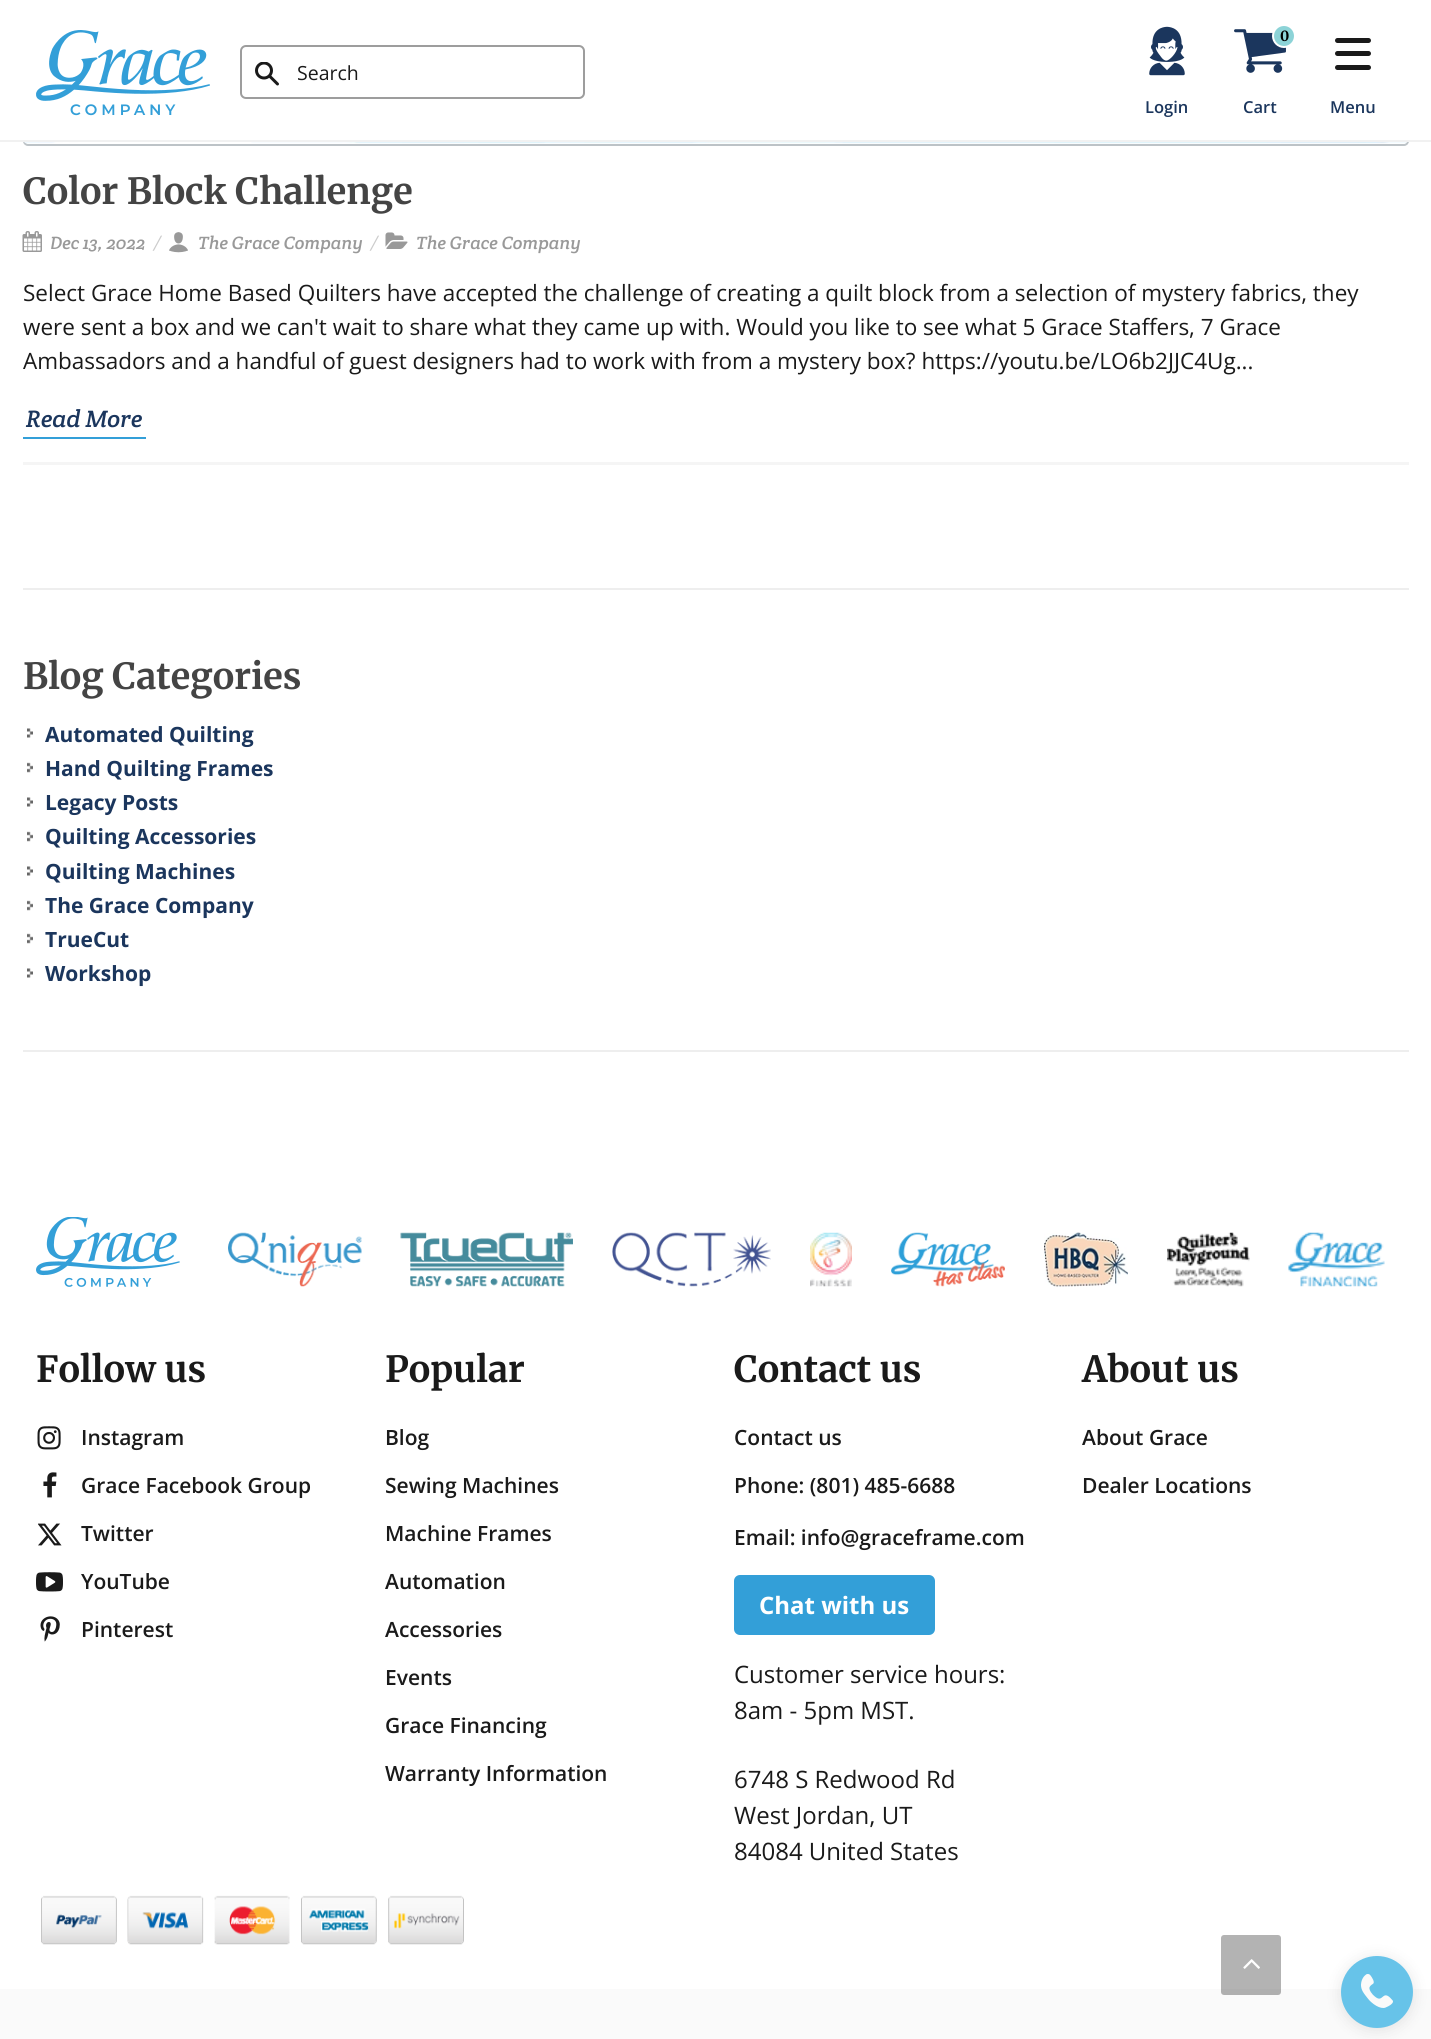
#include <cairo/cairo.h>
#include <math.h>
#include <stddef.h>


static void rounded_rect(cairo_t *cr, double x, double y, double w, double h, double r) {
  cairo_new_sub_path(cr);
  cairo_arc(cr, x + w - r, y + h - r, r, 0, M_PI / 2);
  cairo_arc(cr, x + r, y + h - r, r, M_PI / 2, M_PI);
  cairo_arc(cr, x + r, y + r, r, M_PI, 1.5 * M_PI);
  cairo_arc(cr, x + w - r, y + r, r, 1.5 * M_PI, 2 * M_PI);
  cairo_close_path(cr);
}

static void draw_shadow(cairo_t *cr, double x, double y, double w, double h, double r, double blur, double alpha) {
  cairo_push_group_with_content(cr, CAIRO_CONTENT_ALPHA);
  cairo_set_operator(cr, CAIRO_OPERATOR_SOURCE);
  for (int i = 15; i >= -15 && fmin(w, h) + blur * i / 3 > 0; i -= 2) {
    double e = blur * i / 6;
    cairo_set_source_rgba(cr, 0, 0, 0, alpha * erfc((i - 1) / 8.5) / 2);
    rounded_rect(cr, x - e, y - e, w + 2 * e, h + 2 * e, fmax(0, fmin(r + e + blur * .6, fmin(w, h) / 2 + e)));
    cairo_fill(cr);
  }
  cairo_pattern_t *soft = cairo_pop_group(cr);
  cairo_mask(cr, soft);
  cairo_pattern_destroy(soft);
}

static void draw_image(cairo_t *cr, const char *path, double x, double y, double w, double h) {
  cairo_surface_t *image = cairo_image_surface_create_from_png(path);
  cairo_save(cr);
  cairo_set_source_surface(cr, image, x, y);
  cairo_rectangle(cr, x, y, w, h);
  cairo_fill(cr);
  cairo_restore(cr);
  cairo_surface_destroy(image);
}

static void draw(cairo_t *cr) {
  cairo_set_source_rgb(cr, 1, 1, 1);
  cairo_paint(cr);
  rounded_rect(cr, 24, -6, 1384, 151, 4);
  cairo_set_source_rgb(cr, 189 / 255.0, 195 / 255.0, 199 / 255.0);
  cairo_stroke(cr);
  cairo_set_source_rgb(cr, 1, 1, 1);
  cairo_rectangle(cr, 23, 0, 1386, 140);
  cairo_fill(cr);
  cairo_set_source_rgb(cr, 241 / 255.0, 241 / 255.0, 241 / 255.0);
  cairo_rectangle(cr, 0, 140, 1431, 2);
  cairo_fill(cr);
  draw_image(cr, "images/1.png", 36, 30, 174, 86);
  rounded_rect(cr, 241, 46, 343, 52, 5);
  cairo_set_source_rgb(cr, 157 / 255.0, 157 / 255.0, 157 / 255.0);
  cairo_stroke(cr);
  draw_image(cr, "images/2.png", 255, 62, 24, 24);
  draw_image(cr, "images/3.png", 1149, 26, 36, 50);
  draw_image(cr, "images/4.png", 1234, 29, 52, 44);
  cairo_set_source_rgb(cr, 140 / 255.0, 211 / 255.0, 215 / 255.0);
  cairo_arc(cr, 1284, 36, 11, 0, 2 * M_PI);
  cairo_fill_preserve(cr);
  cairo_set_source_rgb(cr, 1, 1, 1);
  cairo_stroke(cr);
  cairo_set_source_rgb(cr, 26 / 255.0, 26 / 255.0, 26 / 255.0);
  rounded_rect(cr, 1335, 38, 36, 5, 2.5);
  cairo_fill(cr);
  rounded_rect(cr, 1335, 51, 36, 5, 2.5);
  cairo_fill(cr);
  rounded_rect(cr, 1335, 65, 36, 5, 2.5);
  cairo_fill(cr);
  cairo_set_source_rgb(cr, 238 / 255.0, 238 / 255.0, 238 / 255.0);
  cairo_rectangle(cr, 23, 588, 1386, 2);
  cairo_fill(cr);
  cairo_set_source_rgb(cr, 245 / 255.0, 245 / 255.0, 245 / 255.0);
  cairo_rectangle(cr, 23, 462, 1386, 3);
  cairo_fill(cr);
  draw_image(cr, "images/5.png", 24, 142, 1383, 2);
  draw_image(cr, "images/6.png", 22, 231, 20, 21);
  draw_image(cr, "images/7.png", 169, 232, 19, 21);
  draw_image(cr, "images/8.png", 385, 232, 23, 17);
  cairo_set_source_rgb(cr, 51 / 255.0, 159 / 255.0, 216 / 255.0);
  cairo_rectangle(cr, 23, 437, 123, 2);
  cairo_fill(cr);
  cairo_set_source_rgb(cr, 238 / 255.0, 238 / 255.0, 238 / 255.0);
  cairo_rectangle(cr, 23, 1050, 1386, 2);
  cairo_fill(cr);
  draw_image(cr, "images/9.png", 27, 728, 6, 10);
  draw_image(cr, "images/10.png", 27, 762, 6, 11);
  draw_image(cr, "images/9.png", 27, 797, 6, 10);
  draw_image(cr, "images/10.png", 27, 831, 6, 11);
  draw_image(cr, "images/9.png", 27, 866, 6, 10);
  draw_image(cr, "images/10.png", 27, 900, 6, 11);
  draw_image(cr, "images/10.png", 27, 933, 6, 11);
  draw_image(cr, "images/9.png", 27, 968, 6, 10);
  draw_image(cr, "images/11.png", 36, 1217, 144, 70);
  draw_image(cr, "images/12.png", 228, 1232, 134, 55);
  draw_image(cr, "images/13.png", 400, 1232, 173, 55);
  draw_image(cr, "images/14.png", 612, 1232, 159, 55);
  draw_image(cr, "images/15.png", 810, 1232, 42, 55);
  draw_image(cr, "images/16.png", 891, 1232, 114, 55);
  draw_image(cr, "images/17.png", 1044, 1232, 84, 55);
  draw_image(cr, "images/18.png", 1167, 1232, 83, 55);
  draw_image(cr, "images/19.png", 1288, 1232, 97, 55);
  draw_image(cr, "images/20.png", 37, 1426, 24, 24);
  draw_image(cr, "images/21.png", 43, 1472, 14, 26);
  draw_image(cr, "images/22.png", 38, 1523, 24, 23);
  draw_image(cr, "images/23.png", 36, 1572, 27, 20);
  draw_image(cr, "images/24.png", 40, 1616, 20, 26);
  cairo_set_source_rgb(cr, 51 / 255.0, 159 / 255.0, 216 / 255.0);
  rounded_rect(cr, 735.5, 1576.5, 198, 57, 4.5);
  cairo_fill_preserve(cr);
  cairo_set_line_width(cr, 3);
  cairo_stroke(cr);
  draw_image(cr, "images/25.png", 41, 1895, 423, 50);
  cairo_set_source_rgb(cr, 250 / 255.0, 250 / 255.0, 250 / 255.0);
  cairo_rectangle(cr, 0, 1989, 1431, 50);
  cairo_fill(cr);
  cairo_set_source_rgb(cr, 0, 0, 0);
  draw_shadow(cr, 1341, 1958, 72, 72, 36, 7.5, 0.1);
  cairo_set_source_rgb(cr, 103 / 255.0, 195 / 255.0, 233 / 255.0);
  cairo_arc(cr, 1377, 1992, 36, 0, 2 * M_PI);
  cairo_fill(cr);
  draw_image(cr, "images/26.png", 1361, 1974, 32, 34);
  cairo_set_source_rgba(cr, 0, 0, 0, 0.3);
  rounded_rect(cr, 1221, 1935, 60, 60, 3);
  cairo_fill(cr);
  draw_image(cr, "images/27.png", 1243, 1959, 17, 10);
  cairo_select_font_face(cr, "Open Sans", CAIRO_FONT_SLANT_NORMAL, CAIRO_FONT_WEIGHT_NORMAL);
  cairo_set_font_size(cr, 19.5);
  cairo_set_source_rgb(cr, 26 / 255.0, 26 / 255.0, 26 / 255.0);
  cairo_move_to(cr, 297, 80);
  cairo_show_text(cr, "Search");
  cairo_select_font_face(cr, "Open Sans SemiBold", CAIRO_FONT_SLANT_NORMAL, CAIRO_FONT_WEIGHT_NORMAL);
  cairo_set_font_size(cr, 16.5);
  cairo_set_source_rgb(cr, 27 / 255.0, 54 / 255.0, 93 / 255.0);
  cairo_move_to(cr, 1145, 113);
  cairo_show_text(cr, "Login");
  cairo_select_font_face(cr, "Merriweather", CAIRO_FONT_SLANT_NORMAL, CAIRO_FONT_WEIGHT_BOLD);
  cairo_set_font_size(cr, 14);
  cairo_set_source_rgb(cr, 0, 0, 0);
  cairo_move_to(cr, 1280, 41);
  cairo_show_text(cr, "0");
  cairo_select_font_face(cr, "Open Sans SemiBold", CAIRO_FONT_SLANT_NORMAL, CAIRO_FONT_WEIGHT_NORMAL);
  cairo_set_font_size(cr, 16.5);
  cairo_set_source_rgb(cr, 27 / 255.0, 54 / 255.0, 93 / 255.0);
  cairo_move_to(cr, 1243, 113);
  cairo_show_text(cr, "Cart");
  cairo_move_to(cr, 1330, 113);
  cairo_show_text(cr, "Menu");
  cairo_select_font_face(cr, "Merriweather", CAIRO_FONT_SLANT_NORMAL, CAIRO_FONT_WEIGHT_BOLD);
  cairo_set_font_size(cr, 36);
  cairo_set_source_rgb(cr, 68 / 255.0, 68 / 255.0, 68 / 255.0);
  cairo_move_to(cr, 23, 204);
  cairo_show_text(cr, "Color Block Challenge");
  cairo_select_font_face(cr, "Crete Round", CAIRO_FONT_SLANT_ITALIC, CAIRO_FONT_WEIGHT_NORMAL);
  cairo_set_font_size(cr, 18);
  cairo_set_source_rgb(cr, 153 / 255.0, 153 / 255.0, 153 / 255.0);
  cairo_move_to(cr, 50, 249);
  cairo_show_text(cr, "Dec 13, 2022");
  cairo_set_source_rgb(cr, 204 / 255.0, 204 / 255.0, 204 / 255.0);
  cairo_move_to(cr, 153, 249);
  cairo_show_text(cr, "/");
  cairo_set_source_rgb(cr, 153 / 255.0, 153 / 255.0, 153 / 255.0);
  cairo_move_to(cr, 198, 249);
  cairo_show_text(cr, "The Grace Company");
  cairo_set_source_rgb(cr, 204 / 255.0, 204 / 255.0, 204 / 255.0);
  cairo_move_to(cr, 370, 249);
  cairo_show_text(cr, "/");
  cairo_set_source_rgb(cr, 153 / 255.0, 153 / 255.0, 153 / 255.0);
  cairo_move_to(cr, 416, 249);
  cairo_show_text(cr, "The Grace Company");
  cairo_select_font_face(cr, "Open Sans", CAIRO_FONT_SLANT_NORMAL, CAIRO_FONT_WEIGHT_NORMAL);
  cairo_set_font_size(cr, 22.5);
  cairo_set_source_rgb(cr, 26 / 255.0, 26 / 255.0, 26 / 255.0);
  cairo_move_to(cr, 23, 301);
  cairo_show_text(cr, "Select Grace Home Based Quilters have accepted the challenge of creating a quilt block from a selection of mystery fabrics, they");
  cairo_move_to(cr, 23, 335);
  cairo_show_text(cr, "were sent a box and we can't wait to share what they came up with. Would you like to see what 5 Grace Staffers, 7 Grace");
  cairo_move_to(cr, 23, 369);
  cairo_show_text(cr, "Ambassadors and a handful of guest designers had to work with from a mystery box? https://youtu.be/LO6b2JJC4Ug...");
  cairo_select_font_face(cr, "Crete Round", CAIRO_FONT_SLANT_ITALIC, CAIRO_FONT_WEIGHT_NORMAL);
  cairo_set_font_size(cr, 24);
  cairo_set_source_rgb(cr, 27 / 255.0, 54 / 255.0, 93 / 255.0);
  cairo_move_to(cr, 26, 427);
  cairo_show_text(cr, "Read More");
  cairo_select_font_face(cr, "Merriweather", CAIRO_FONT_SLANT_NORMAL, CAIRO_FONT_WEIGHT_BOLD);
  cairo_set_font_size(cr, 36);
  cairo_set_source_rgb(cr, 68 / 255.0, 68 / 255.0, 68 / 255.0);
  cairo_move_to(cr, 23, 689);
  cairo_show_text(cr, "Blog Categories");
  cairo_select_font_face(cr, "Open Sans", CAIRO_FONT_SLANT_NORMAL, CAIRO_FONT_WEIGHT_BOLD);
  cairo_set_font_size(cr, 21);
  cairo_set_source_rgb(cr, 27 / 255.0, 54 / 255.0, 93 / 255.0);
  cairo_move_to(cr, 45, 742);
  cairo_show_text(cr, "Automated Quilting");
  cairo_move_to(cr, 45, 776);
  cairo_show_text(cr, "Hand Quilting Frames");
  cairo_move_to(cr, 45, 810);
  cairo_show_text(cr, "Legacy Posts");
  cairo_move_to(cr, 45, 844);
  cairo_show_text(cr, "Quilting Accessories");
  cairo_move_to(cr, 45, 879);
  cairo_show_text(cr, "Quilting Machines");
  cairo_move_to(cr, 45, 913);
  cairo_show_text(cr, "The Grace Company");
  cairo_move_to(cr, 45, 947);
  cairo_show_text(cr, "TrueCut");
  cairo_move_to(cr, 45, 981);
  cairo_show_text(cr, "Workshop");
  cairo_select_font_face(cr, "Merriweather", CAIRO_FONT_SLANT_NORMAL, CAIRO_FONT_WEIGHT_BOLD);
  cairo_set_font_size(cr, 36);
  cairo_set_source_rgb(cr, 26 / 255.0, 26 / 255.0, 26 / 255.0);
  cairo_move_to(cr, 36, 1382);
  cairo_show_text(cr, "Follow us");
  cairo_select_font_face(cr, "Open Sans SemiBold", CAIRO_FONT_SLANT_NORMAL, CAIRO_FONT_WEIGHT_NORMAL);
  cairo_set_font_size(cr, 21);
  cairo_move_to(cr, 81, 1445);
  cairo_show_text(cr, "Instagram");
  cairo_move_to(cr, 81, 1493);
  cairo_show_text(cr, "Grace Facebook Group");
  cairo_move_to(cr, 81, 1541);
  cairo_show_text(cr, "Twitter");
  cairo_move_to(cr, 81, 1589);
  cairo_show_text(cr, "YouTube");
  cairo_move_to(cr, 81, 1637);
  cairo_show_text(cr, "Pinterest");
  cairo_select_font_face(cr, "Merriweather", CAIRO_FONT_SLANT_NORMAL, CAIRO_FONT_WEIGHT_BOLD);
  cairo_set_font_size(cr, 36);
  cairo_move_to(cr, 385, 1382);
  cairo_show_text(cr, "Popular");
  cairo_select_font_face(cr, "Open Sans SemiBold", CAIRO_FONT_SLANT_NORMAL, CAIRO_FONT_WEIGHT_NORMAL);
  cairo_set_font_size(cr, 21);
  cairo_move_to(cr, 385, 1445);
  cairo_show_text(cr, "Blog");
  cairo_move_to(cr, 385, 1493);
  cairo_show_text(cr, "Sewing Machines");
  cairo_move_to(cr, 385, 1541);
  cairo_show_text(cr, "Machine Frames");
  cairo_move_to(cr, 385, 1589);
  cairo_show_text(cr, "Automation");
  cairo_move_to(cr, 385, 1637);
  cairo_show_text(cr, "Accessories");
  cairo_move_to(cr, 385, 1685);
  cairo_show_text(cr, "Events");
  cairo_move_to(cr, 385, 1733);
  cairo_show_text(cr, "Grace Financing");
  cairo_move_to(cr, 385, 1781);
  cairo_show_text(cr, "Warranty Information");
  cairo_select_font_face(cr, "Merriweather", CAIRO_FONT_SLANT_NORMAL, CAIRO_FONT_WEIGHT_BOLD);
  cairo_set_font_size(cr, 36);
  cairo_move_to(cr, 734, 1382);
  cairo_show_text(cr, "Contact us");
  cairo_select_font_face(cr, "Open Sans SemiBold", CAIRO_FONT_SLANT_NORMAL, CAIRO_FONT_WEIGHT_NORMAL);
  cairo_set_font_size(cr, 21);
  cairo_move_to(cr, 734, 1445);
  cairo_show_text(cr, "Contact us");
  cairo_move_to(cr, 734, 1493);
  cairo_show_text(cr, "Phone: (801) 485-6688");
  cairo_move_to(cr, 734, 1545);
  cairo_show_text(cr, "Email: info@graceframe.com");
  cairo_select_font_face(cr, "Open Sans", CAIRO_FONT_SLANT_NORMAL, CAIRO_FONT_WEIGHT_BOLD);
  cairo_set_font_size(cr, 24);
  cairo_set_source_rgb(cr, 1, 1, 1);
  cairo_move_to(cr, 759, 1614);
  cairo_show_text(cr, "Chat with us");
  cairo_select_font_face(cr, "Open Sans", CAIRO_FONT_SLANT_NORMAL, CAIRO_FONT_WEIGHT_NORMAL);
  cairo_set_source_rgb(cr, 26 / 255.0, 26 / 255.0, 26 / 255.0);
  cairo_move_to(cr, 734, 1683);
  cairo_show_text(cr, "Customer service hours:");
  cairo_move_to(cr, 734, 1719);
  cairo_show_text(cr, "8am - 5pm MST.");
  cairo_move_to(cr, 734, 1788);
  cairo_show_text(cr, "6748 S Redwood Rd");
  cairo_move_to(cr, 734, 1824);
  cairo_show_text(cr, "West Jordan, UT");
  cairo_move_to(cr, 734, 1860);
  cairo_show_text(cr, "84084 United States");
  cairo_select_font_face(cr, "Merriweather", CAIRO_FONT_SLANT_NORMAL, CAIRO_FONT_WEIGHT_BOLD);
  cairo_set_font_size(cr, 36);
  cairo_move_to(cr, 1082, 1382);
  cairo_show_text(cr, "About us");
  cairo_select_font_face(cr, "Open Sans SemiBold", CAIRO_FONT_SLANT_NORMAL, CAIRO_FONT_WEIGHT_NORMAL);
  cairo_set_font_size(cr, 21);
  cairo_move_to(cr, 1082, 1445);
  cairo_show_text(cr, "About Grace");
  cairo_move_to(cr, 1082, 1493);
  cairo_show_text(cr, "Dealer Locations");
}

int main(void) {
  cairo_surface_t *surface = cairo_image_surface_create(CAIRO_FORMAT_RGB24, 1431, 2039);
  cairo_t *cr = cairo_create(surface);
  cairo_font_options_t *options = cairo_font_options_create();
  cairo_font_options_set_hint_metrics(options, CAIRO_HINT_METRICS_OFF);
  cairo_font_options_set_hint_style(options, CAIRO_HINT_STYLE_NONE);
  cairo_set_font_options(cr, options);
  cairo_set_miter_limit(cr, 4);
  draw(cr);
  cairo_surface_write_to_png(surface, "out.png");
  cairo_font_options_destroy(options);
  cairo_destroy(cr);
  cairo_surface_destroy(surface);
  return 0;
}
